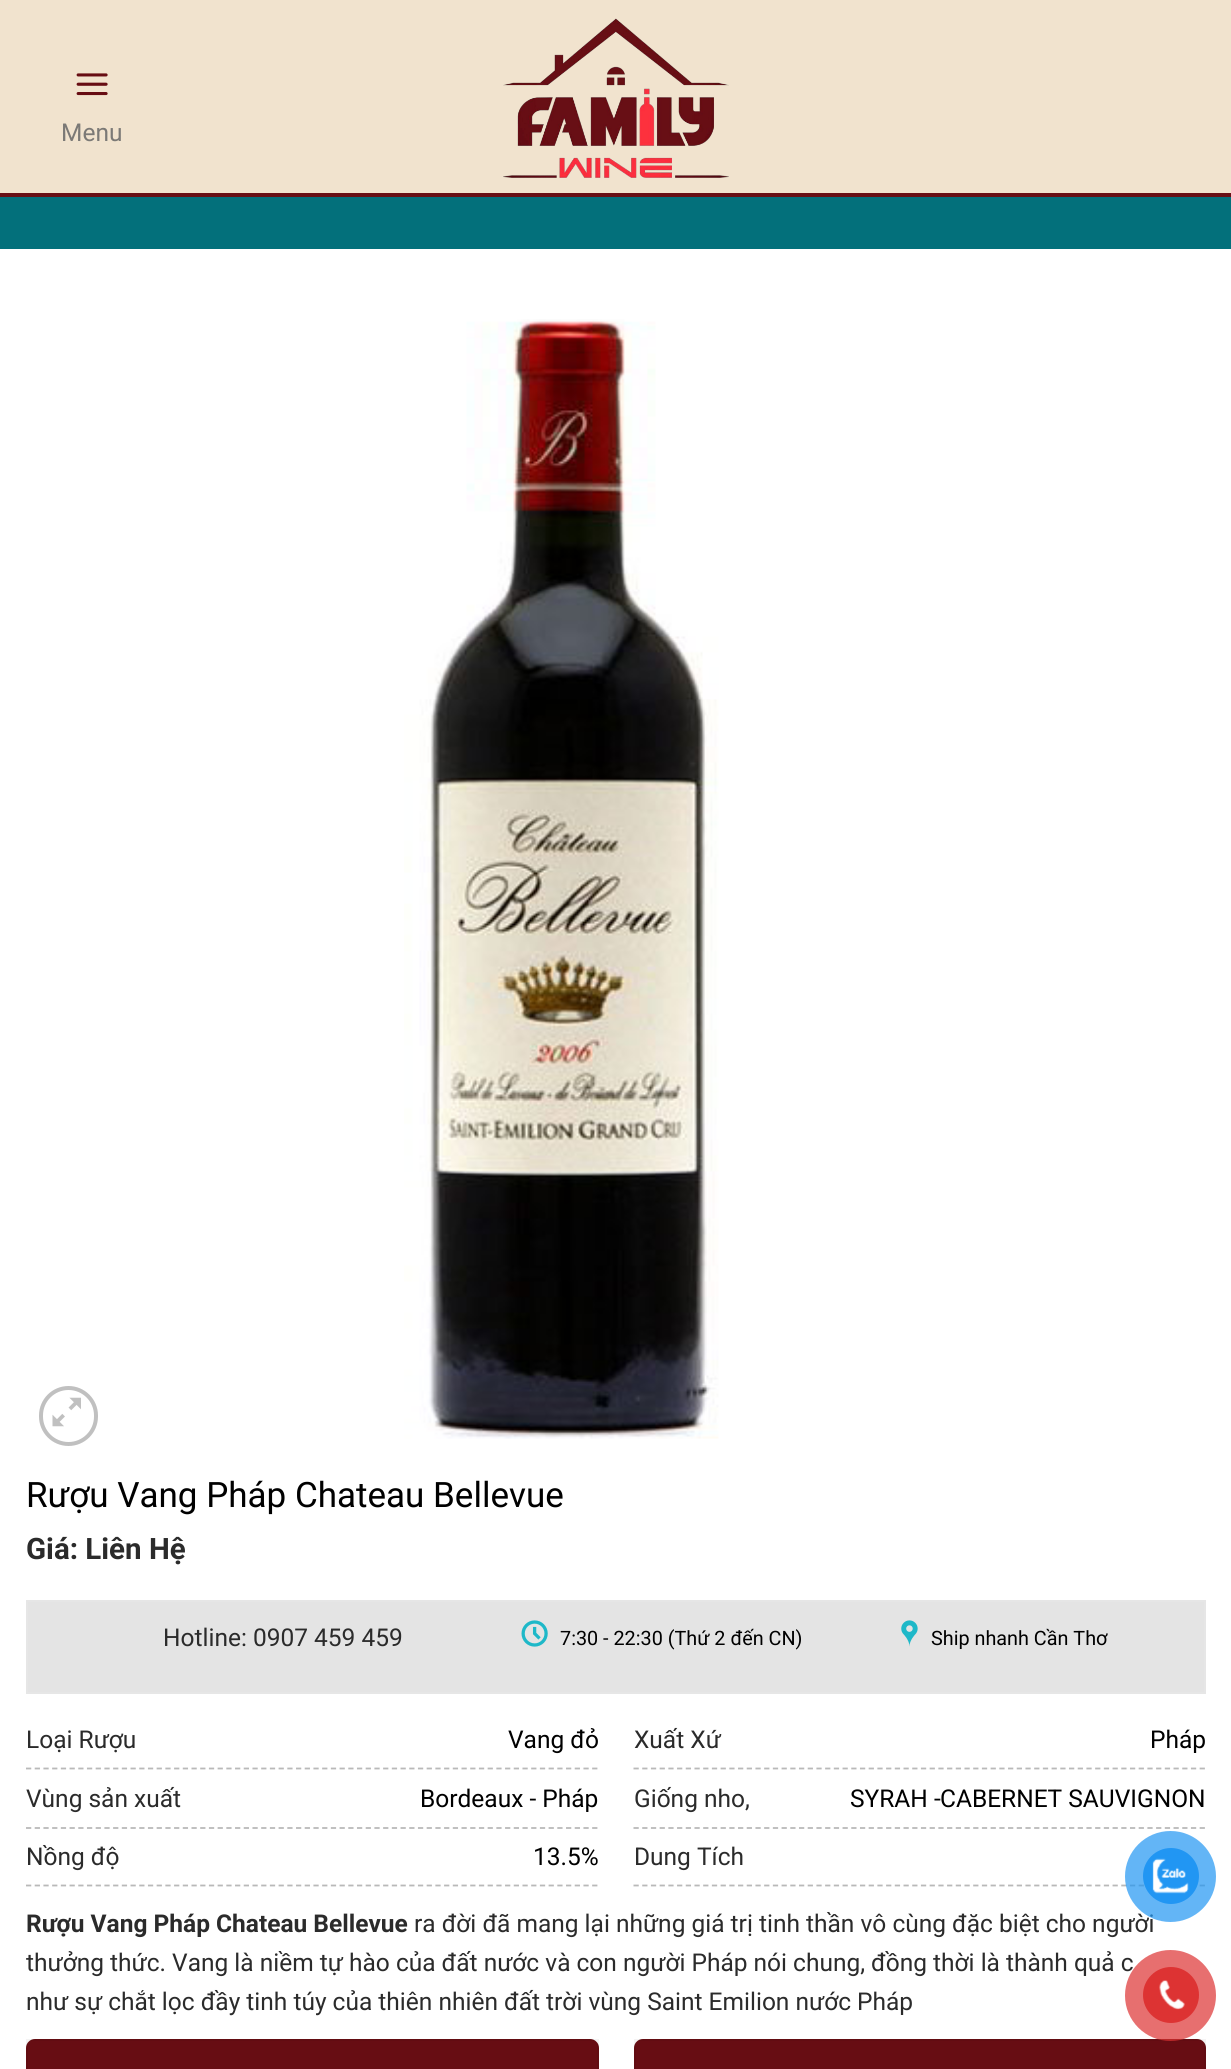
#include <cairo/cairo.h>
#include <math.h>
#include <stddef.h>


static void rounded_rect(cairo_t *cr, double x, double y, double w, double h, double r) {
  cairo_new_sub_path(cr);
  cairo_arc(cr, x + w - r, y + h - r, r, 0, M_PI / 2);
  cairo_arc(cr, x + r, y + h - r, r, M_PI / 2, M_PI);
  cairo_arc(cr, x + r, y + r, r, M_PI, 1.5 * M_PI);
  cairo_arc(cr, x + w - r, y + r, r, 1.5 * M_PI, 2 * M_PI);
  cairo_close_path(cr);
}

static void draw_image(cairo_t *cr, const char *path, double x, double y, double w, double h) {
  cairo_surface_t *image = cairo_image_surface_create_from_png(path);
  cairo_save(cr);
  cairo_set_source_surface(cr, image, x, y);
  cairo_rectangle(cr, x, y, w, h);
  cairo_fill(cr);
  cairo_restore(cr);
  cairo_surface_destroy(image);
}

static void draw(cairo_t *cr) {
  cairo_set_source_rgb(cr, 1, 1, 1);
  cairo_paint(cr);
  cairo_set_source_rgb(cr, 241 / 255.0, 227 / 255.0, 206 / 255.0);
  cairo_rectangle(cr, 0, 0, 1231, 193);
  cairo_fill(cr);
  cairo_set_source_rgb(cr, 104 / 255.0, 15 / 255.0, 21 / 255.0);
  cairo_rectangle(cr, 0, 193, 1231, 4);
  cairo_fill(cr);
  draw_image(cr, "images/1.png", 76, 73, 32, 23);
  draw_image(cr, "images/2.png", 503, 18, 226, 160);
  cairo_set_source_rgb(cr, 3 / 255.0, 112 / 255.0, 123 / 255.0);
  cairo_rectangle(cr, 0, 197, 1231, 52);
  cairo_fill(cr);
  rounded_rect(cr, 41, 1388, 55, 56, 27.5);
  cairo_set_source_rgb(cr, 192 / 255.0, 192 / 255.0, 192 / 255.0);
  cairo_set_line_width(cr, 4);
  cairo_stroke(cr);
  draw_image(cr, "images/3.png", 52, 1397, 29, 30);
  draw_image(cr, "images/4.png", 404, 319, 315, 1120);
  cairo_set_source_rgb(cr, 228 / 255.0, 228 / 255.0, 228 / 255.0);
  cairo_rectangle(cr, 27, 1601, 1178, 92);
  cairo_fill_preserve(cr);
  cairo_set_source_rgb(cr, 230 / 255.0, 230 / 255.0, 230 / 255.0);
  cairo_set_line_width(cr, 2);
  cairo_stroke(cr);
  draw_image(cr, "images/5.png", 521, 1620, 27, 27);
  draw_image(cr, "images/6.png", 901, 1620, 17, 27);
  cairo_new_path(cr);
  cairo_move_to(cr, 26, 1768.5);
  cairo_line_to(cr, 598.5, 1768.5);
  cairo_set_source_rgb(cr, 185 / 255.0, 185 / 255.0, 185 / 255.0);
  cairo_set_line_width(cr, 1.8);
  cairo_set_dash(cr, (double[]){5.25, 3.46}, 2, 0);
  cairo_stroke(cr);
  cairo_new_path(cr);
  cairo_move_to(cr, 633.5, 1768.5);
  cairo_line_to(cr, 1206, 1768.5);
  cairo_stroke(cr);
  cairo_new_path(cr);
  cairo_move_to(cr, 26, 1828);
  cairo_line_to(cr, 598.5, 1828);
  cairo_stroke(cr);
  cairo_new_path(cr);
  cairo_move_to(cr, 633.5, 1828);
  cairo_line_to(cr, 1206, 1828);
  cairo_stroke(cr);
  cairo_new_path(cr);
  cairo_move_to(cr, 26, 1885.5);
  cairo_line_to(cr, 598.5, 1885.5);
  cairo_stroke(cr);
  cairo_new_path(cr);
  cairo_move_to(cr, 633.5, 1885.5);
  cairo_line_to(cr, 1206, 1885.5);
  cairo_stroke(cr);
  cairo_set_source_rgb(cr, 103 / 255.0, 13 / 255.0, 19 / 255.0);
  rounded_rect(cr, 26, 2039, 573, 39, 9);
  cairo_fill(cr);
  cairo_rectangle(cr, 27, 2040, 571, 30);
  cairo_set_source_rgba(cr, 0, 0, 0, 0.05);
  cairo_set_line_width(cr, 2);
  cairo_set_dash(cr, NULL, 0, 0);
  cairo_stroke(cr);
  cairo_set_source_rgb(cr, 103 / 255.0, 13 / 255.0, 19 / 255.0);
  rounded_rect(cr, 634, 2039, 572, 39, 9);
  cairo_fill(cr);
  cairo_rectangle(cr, 635, 2040, 570, 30);
  cairo_set_source_rgba(cr, 0, 0, 0, 0.05);
  cairo_stroke(cr);
  cairo_select_font_face(cr, "Roboto", CAIRO_FONT_SLANT_NORMAL, CAIRO_FONT_WEIGHT_NORMAL);
  cairo_set_font_size(cr, 24.5);
  cairo_set_source_rgb(cr, 123 / 255.0, 121 / 255.0, 118 / 255.0);
  cairo_move_to(cr, 61, 141);
  cairo_show_text(cr, "Menu");
  cairo_set_font_size(cr, 35);
  cairo_set_source_rgb(cr, 0, 0, 0);
  cairo_move_to(cr, 26, 1507);
  cairo_show_text(cr, "Rượu Vang Pháp Chateau Bellevue");
  cairo_select_font_face(cr, "Roboto", CAIRO_FONT_SLANT_NORMAL, CAIRO_FONT_WEIGHT_BOLD);
  cairo_set_font_size(cr, 29.5);
  cairo_set_source_rgb(cr, 43 / 255.0, 43 / 255.0, 43 / 255.0);
  cairo_move_to(cr, 26, 1559);
  cairo_show_text(cr, "Giá: Liên Hệ");
  cairo_select_font_face(cr, "Roboto", CAIRO_FONT_SLANT_NORMAL, CAIRO_FONT_WEIGHT_NORMAL);
  cairo_set_font_size(cr, 24.5);
  cairo_move_to(cr, 163, 1646);
  cairo_show_text(cr, "Hotline: 0907 459 459");
  cairo_set_font_size(cr, 19.8);
  cairo_set_source_rgb(cr, 0, 0, 0);
  cairo_move_to(cr, 560, 1645);
  cairo_show_text(cr, "7:30 - 22:30 (Thứ 2 đến CN)");
  cairo_move_to(cr, 931, 1645);
  cairo_show_text(cr, "Ship nhanh Cần Thơ");
  cairo_set_font_size(cr, 24.5);
  cairo_set_source_rgb(cr, 43 / 255.0, 43 / 255.0, 43 / 255.0);
  cairo_move_to(cr, 26, 1748);
  cairo_show_text(cr, "Loại Rượu");
  cairo_set_source_rgb(cr, 0, 0, 0);
  cairo_move_to(cr, 508, 1748);
  cairo_show_text(cr, "Vang đỏ");
  cairo_set_source_rgb(cr, 43 / 255.0, 43 / 255.0, 43 / 255.0);
  cairo_move_to(cr, 634, 1748);
  cairo_show_text(cr, "Xuất Xứ");
  cairo_set_source_rgb(cr, 0, 0, 0);
  cairo_move_to(cr, 1150, 1748);
  cairo_show_text(cr, "Pháp");
  cairo_set_source_rgb(cr, 43 / 255.0, 43 / 255.0, 43 / 255.0);
  cairo_move_to(cr, 26, 1807);
  cairo_show_text(cr, "Vùng sản xuất");
  cairo_set_source_rgb(cr, 0, 0, 0);
  cairo_move_to(cr, 420, 1807);
  cairo_show_text(cr, "Bordeaux - Pháp");
  cairo_set_source_rgb(cr, 43 / 255.0, 43 / 255.0, 43 / 255.0);
  cairo_move_to(cr, 634, 1807);
  cairo_show_text(cr, "Giống nho,");
  cairo_set_source_rgb(cr, 0, 0, 0);
  cairo_move_to(cr, 850, 1807);
  cairo_show_text(cr, "SYRAH -");
  cairo_move_to(cr, 940, 1807);
  cairo_show_text(cr, "CABERNET SAUVIGNON");
  cairo_set_source_rgb(cr, 43 / 255.0, 43 / 255.0, 43 / 255.0);
  cairo_move_to(cr, 26, 1865);
  cairo_show_text(cr, "Nồng độ");
  cairo_set_source_rgb(cr, 0, 0, 0);
  cairo_move_to(cr, 533, 1865);
  cairo_show_text(cr, "13.5%");
  cairo_set_source_rgb(cr, 43 / 255.0, 43 / 255.0, 43 / 255.0);
  cairo_move_to(cr, 634, 1865);
  cairo_show_text(cr, "Dung Tích");
  cairo_select_font_face(cr, "Roboto", CAIRO_FONT_SLANT_NORMAL, CAIRO_FONT_WEIGHT_BOLD);
  cairo_move_to(cr, 26, 1932);
  cairo_show_text(cr, "Rượu Vang Pháp Chateau Bellevue");
  cairo_select_font_face(cr, "Roboto", CAIRO_FONT_SLANT_NORMAL, CAIRO_FONT_WEIGHT_NORMAL);
  cairo_move_to(cr, 414, 1932);
  cairo_show_text(cr, "ra đời đã mang lại những giá trị tinh thần vô cùng đặc biệt cho người");
  cairo_move_to(cr, 26, 1971);
  cairo_show_text(cr, "thưởng thức. Vang là niềm tự hào của đất nước và con người Pháp nói chung, đồng thời là thành quả c");
  cairo_move_to(cr, 26, 2010);
  cairo_show_text(cr, "như sự chắt lọc đầy tinh túy của thiên nhiên đất trời vùng Saint Emilion nước Pháp");
  cairo_set_source_rgba(cr, 33 / 255.0, 150 / 255.0, 243 / 255.0, 0.7);
  cairo_new_path(cr);
  cairo_arc(cr, 1170.5, 1876.5, 45.5, 0, 2 * M_PI);
  cairo_fill(cr);
  cairo_set_source_rgb(cr, 33 / 255.0, 150 / 255.0, 243 / 255.0);
  cairo_arc(cr, 1171, 1876, 28, 0, 2 * M_PI);
  cairo_fill(cr);
  draw_image(cr, "images/7.png", 1152, 1858, 37, 36);
  cairo_set_source_rgba(cr, 221 / 255.0, 51 / 255.0, 51 / 255.0, 0.7);
  cairo_arc(cr, 1170.5, 1995.5, 45.5, 0, 2 * M_PI);
  cairo_fill(cr);
  cairo_set_source_rgb(cr, 221 / 255.0, 51 / 255.0, 51 / 255.0);
  cairo_arc(cr, 1171, 1995, 28, 0, 2 * M_PI);
  cairo_fill(cr);
  draw_image(cr, "images/8.png", 1159, 1980, 26, 30);
}

int main(void) {
  cairo_surface_t *surface = cairo_image_surface_create(CAIRO_FORMAT_RGB24, 1231, 2069);
  cairo_t *cr = cairo_create(surface);
  cairo_font_options_t *options = cairo_font_options_create();
  cairo_font_options_set_hint_metrics(options, CAIRO_HINT_METRICS_OFF);
  cairo_font_options_set_hint_style(options, CAIRO_HINT_STYLE_NONE);
  cairo_set_font_options(cr, options);
  cairo_set_miter_limit(cr, 4);
  draw(cr);
  cairo_surface_write_to_png(surface, "out.png");
  cairo_font_options_destroy(options);
  cairo_destroy(cr);
  cairo_surface_destroy(surface);
  return 0;
}
